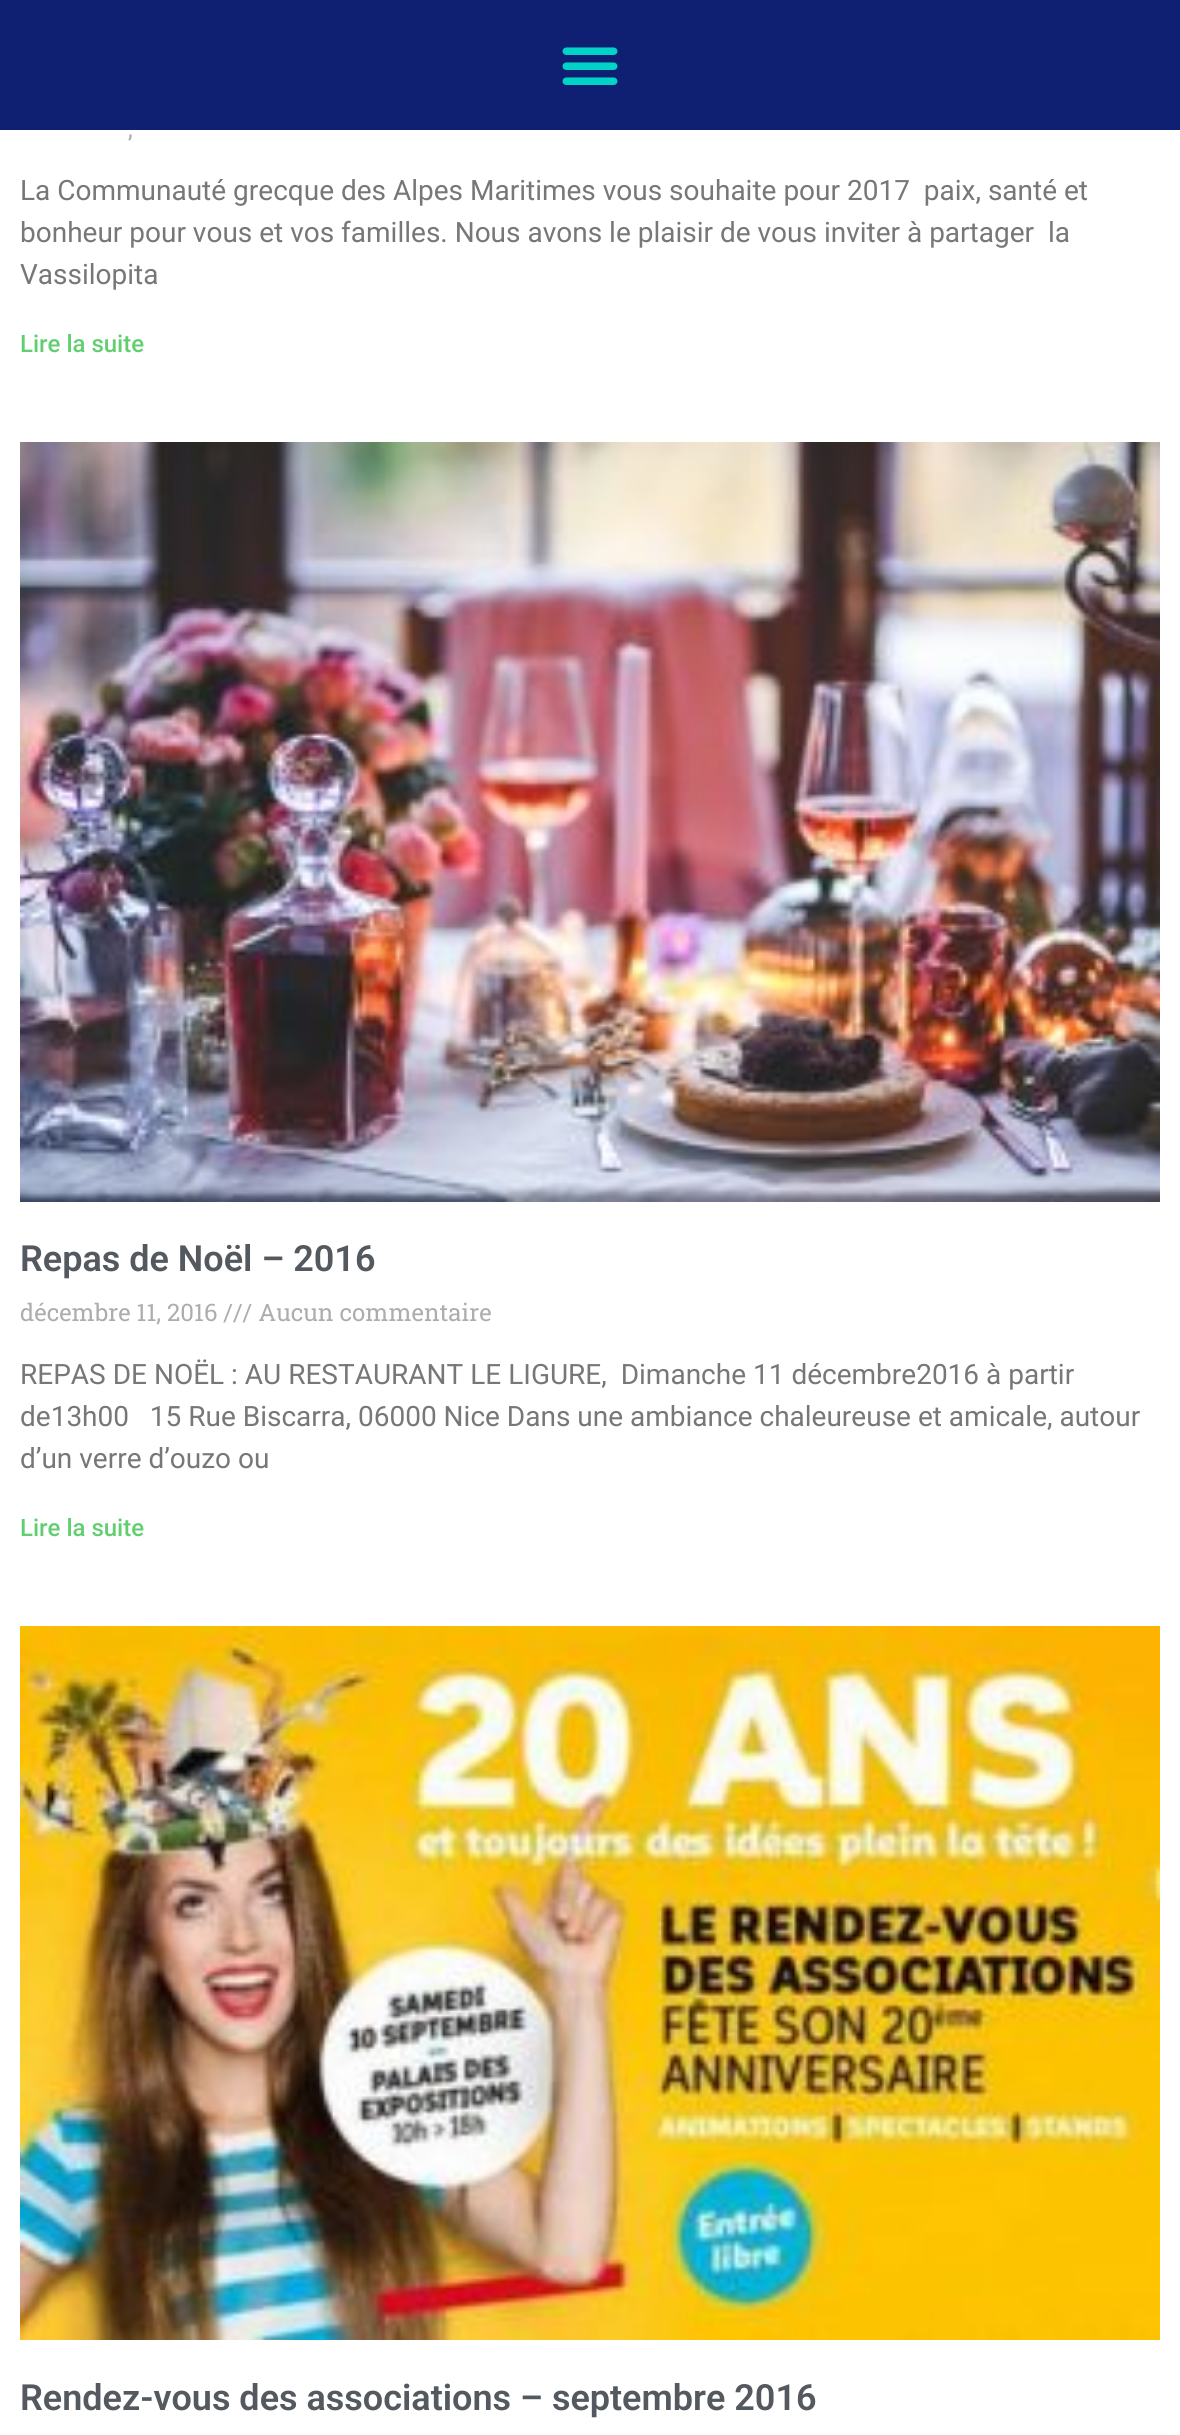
#include <cairo/cairo.h>
#include <math.h>
#include <stddef.h>


static void draw_image(cairo_t *cr, const char *path, double x, double y, double w, double h) {
  cairo_surface_t *image = cairo_image_surface_create_from_png(path);
  cairo_save(cr);
  cairo_set_source_surface(cr, image, x, y);
  cairo_rectangle(cr, x, y, w, h);
  cairo_fill(cr);
  cairo_restore(cr);
  cairo_surface_destroy(image);
}

static void draw(cairo_t *cr) {
  cairo_set_source_rgb(cr, 1, 1, 1);
  cairo_paint(cr);
  cairo_set_source_rgb(cr, 15 / 255.0, 32 / 255.0, 114 / 255.0);
  cairo_rectangle(cr, 0, 0, 1180, 130);
  cairo_fill(cr);
  draw_image(cr, "images/1.png", 562, 47, 56, 38);
  draw_image(cr, "images/2.png", 20, 442, 1140, 760);
  draw_image(cr, "images/3.png", 20, 1626, 1140, 714);
  cairo_select_font_face(cr, "Roboto Slab", CAIRO_FONT_SLANT_NORMAL, CAIRO_FONT_WEIGHT_NORMAL);
  cairo_set_font_size(cr, 24);
  cairo_set_source_rgb(cr, 173 / 255.0, 173 / 255.0, 173 / 255.0);
  cairo_move_to(cr, 128, 137);
  cairo_show_text(cr, ",");
  cairo_select_font_face(cr, "Roboto", CAIRO_FONT_SLANT_NORMAL, CAIRO_FONT_WEIGHT_NORMAL);
  cairo_set_font_size(cr, 28);
  cairo_set_source_rgb(cr, 119 / 255.0, 119 / 255.0, 119 / 255.0);
  cairo_move_to(cr, 20, 200);
  cairo_show_text(cr, "La Communauté grecque des Alpes Maritimes vous souhaite pour 2017  paix, santé et");
  cairo_move_to(cr, 20, 242);
  cairo_show_text(cr, "bonheur pour vous et vos familles. Nous avons le plaisir de vous inviter à partager  la");
  cairo_move_to(cr, 20, 284);
  cairo_show_text(cr, "Vassilopita");
  cairo_select_font_face(cr, "Roboto Medium", CAIRO_FONT_SLANT_NORMAL, CAIRO_FONT_WEIGHT_NORMAL);
  cairo_set_font_size(cr, 24);
  cairo_set_source_rgb(cr, 97 / 255.0, 206 / 255.0, 112 / 255.0);
  cairo_move_to(cr, 20, 352);
  cairo_show_text(cr, "Lire la suite");
  cairo_select_font_face(cr, "Roboto SemiBold", CAIRO_FONT_SLANT_NORMAL, CAIRO_FONT_WEIGHT_NORMAL);
  cairo_set_font_size(cr, 36);
  cairo_set_source_rgb(cr, 84 / 255.0, 89 / 255.0, 95 / 255.0);
  cairo_move_to(cr, 20, 1271);
  cairo_show_text(cr, "Repas de Noël – 2016");
  cairo_select_font_face(cr, "Roboto Slab", CAIRO_FONT_SLANT_NORMAL, CAIRO_FONT_WEIGHT_NORMAL);
  cairo_set_font_size(cr, 24);
  cairo_set_source_rgb(cr, 173 / 255.0, 173 / 255.0, 173 / 255.0);
  cairo_move_to(cr, 20, 1321);
  cairo_show_text(cr, "décembre 11, 2016 /// Aucun commentaire");
  cairo_select_font_face(cr, "Roboto", CAIRO_FONT_SLANT_NORMAL, CAIRO_FONT_WEIGHT_NORMAL);
  cairo_set_font_size(cr, 28);
  cairo_set_source_rgb(cr, 119 / 255.0, 119 / 255.0, 119 / 255.0);
  cairo_move_to(cr, 20, 1384);
  cairo_show_text(cr, "REPAS DE NOËL : AU RESTAURANT LE LIGURE,  Dimanche 11 décembre2016 à partir");
  cairo_move_to(cr, 20, 1426);
  cairo_show_text(cr, "de13h00   15 Rue Biscarra, 06000 Nice Dans une ambiance chaleureuse et amicale, autour");
  cairo_move_to(cr, 20, 1468);
  cairo_show_text(cr, "d’un verre d’ouzo ou");
  cairo_select_font_face(cr, "Roboto Medium", CAIRO_FONT_SLANT_NORMAL, CAIRO_FONT_WEIGHT_NORMAL);
  cairo_set_font_size(cr, 24);
  cairo_set_source_rgb(cr, 97 / 255.0, 206 / 255.0, 112 / 255.0);
  cairo_move_to(cr, 20, 1536);
  cairo_show_text(cr, "Lire la suite");
  cairo_select_font_face(cr, "Roboto SemiBold", CAIRO_FONT_SLANT_NORMAL, CAIRO_FONT_WEIGHT_NORMAL);
  cairo_set_font_size(cr, 36);
  cairo_set_source_rgb(cr, 84 / 255.0, 89 / 255.0, 95 / 255.0);
  cairo_move_to(cr, 20, 2410);
  cairo_show_text(cr, "Rendez-vous des associations – septembre 2016");
}

int main(void) {
  cairo_surface_t *surface = cairo_image_surface_create(CAIRO_FORMAT_RGB24, 1180, 2435);
  cairo_t *cr = cairo_create(surface);
  cairo_font_options_t *options = cairo_font_options_create();
  cairo_font_options_set_hint_metrics(options, CAIRO_HINT_METRICS_OFF);
  cairo_font_options_set_hint_style(options, CAIRO_HINT_STYLE_NONE);
  cairo_set_font_options(cr, options);
  cairo_set_miter_limit(cr, 4);
  draw(cr);
  cairo_surface_write_to_png(surface, "out.png");
  cairo_font_options_destroy(options);
  cairo_destroy(cr);
  cairo_surface_destroy(surface);
  return 0;
}
